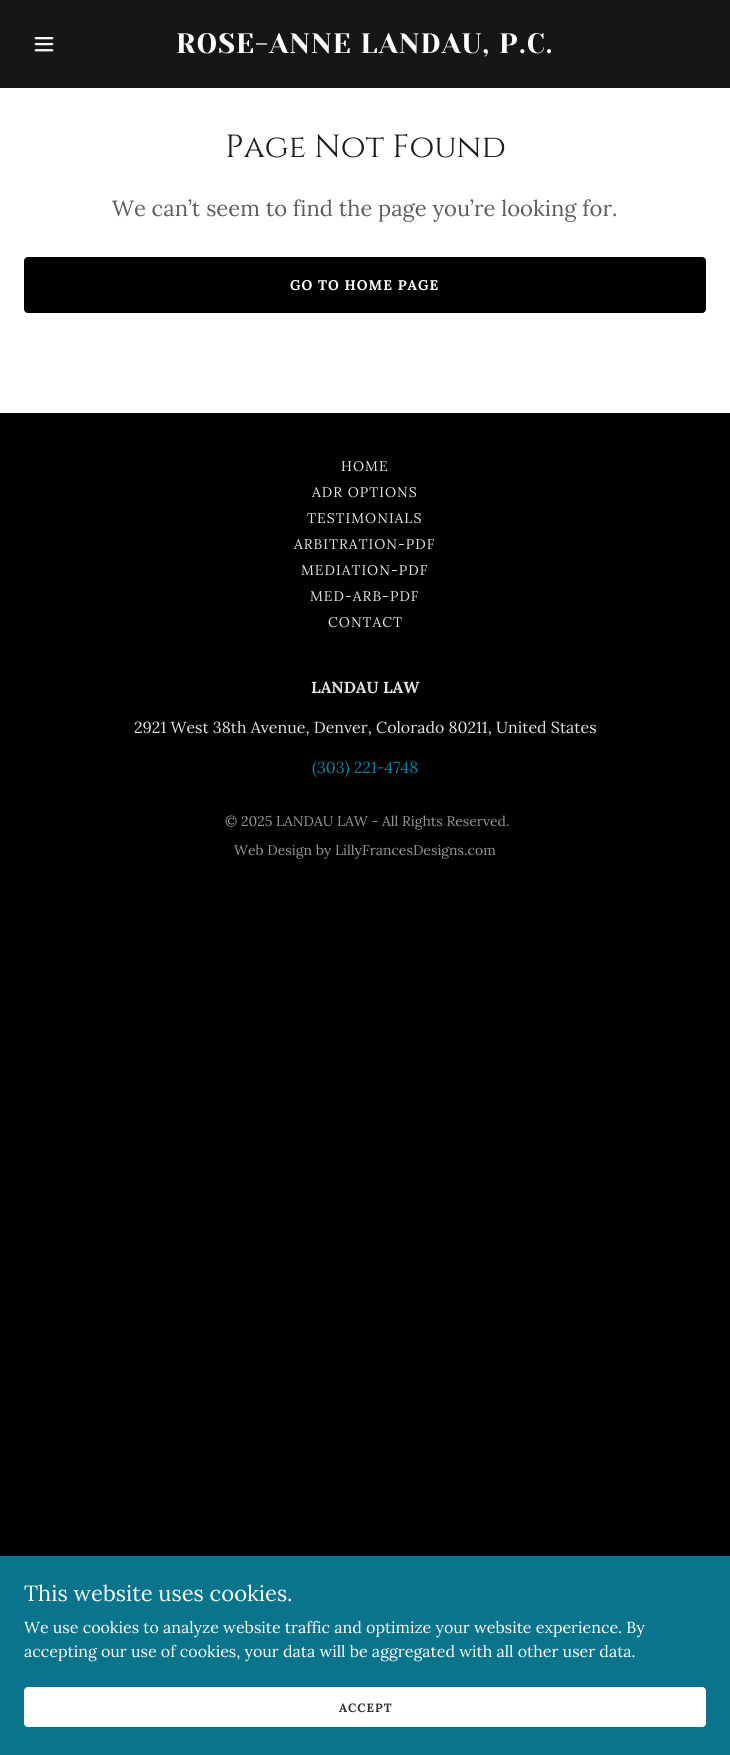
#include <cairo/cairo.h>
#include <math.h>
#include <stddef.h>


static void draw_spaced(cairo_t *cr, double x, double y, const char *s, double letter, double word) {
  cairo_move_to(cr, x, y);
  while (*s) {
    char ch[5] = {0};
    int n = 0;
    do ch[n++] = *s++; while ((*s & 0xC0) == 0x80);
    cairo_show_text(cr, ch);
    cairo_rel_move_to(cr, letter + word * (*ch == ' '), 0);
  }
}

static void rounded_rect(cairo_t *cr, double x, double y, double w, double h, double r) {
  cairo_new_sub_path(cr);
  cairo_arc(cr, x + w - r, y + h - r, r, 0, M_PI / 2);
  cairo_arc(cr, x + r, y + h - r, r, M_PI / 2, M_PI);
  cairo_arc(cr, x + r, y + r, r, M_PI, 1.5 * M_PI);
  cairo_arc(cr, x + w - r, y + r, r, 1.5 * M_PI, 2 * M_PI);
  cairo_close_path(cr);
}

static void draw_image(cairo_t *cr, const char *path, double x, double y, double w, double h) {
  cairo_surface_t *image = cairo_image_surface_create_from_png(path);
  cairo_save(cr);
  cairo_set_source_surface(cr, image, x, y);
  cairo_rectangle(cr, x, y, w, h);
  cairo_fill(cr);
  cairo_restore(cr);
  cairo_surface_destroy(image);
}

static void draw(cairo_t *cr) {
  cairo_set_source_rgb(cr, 0, 0, 0);
  cairo_paint(cr);
  cairo_set_source_rgb(cr, 22 / 255.0, 22 / 255.0, 22 / 255.0);
  cairo_rectangle(cr, 0, 0, 730, 88);
  cairo_fill(cr);
  draw_image(cr, "images/1.png", 34, 37, 20, 15);
  cairo_set_source_rgb(cr, 1, 1, 1);
  cairo_rectangle(cr, 0, 88, 730, 325);
  cairo_fill(cr);
  cairo_set_source_rgb(cr, 0, 0, 0);
  rounded_rect(cr, 24, 257, 682, 56, 4);
  cairo_fill(cr);
  cairo_set_source_rgb(cr, 11 / 255.0, 116 / 255.0, 141 / 255.0);
  cairo_rectangle(cr, 0, 1556, 730, 199);
  cairo_fill(cr);
  cairo_set_source_rgb(cr, 1, 1, 1);
  rounded_rect(cr, 24, 1687, 682, 40, 4);
  cairo_fill(cr);
  cairo_select_font_face(cr, "Yeseva One", CAIRO_FONT_SLANT_NORMAL, CAIRO_FONT_WEIGHT_NORMAL);
  cairo_set_font_size(cr, 28);
  draw_spaced(cr, 176, 53, "ROSE-ANNE LANDAU, P.C.", 1, 0);
  cairo_select_font_face(cr, "Cinzel", CAIRO_FONT_SLANT_NORMAL, CAIRO_FONT_WEIGHT_NORMAL);
  cairo_set_font_size(cr, 32);
  cairo_set_source_rgb(cr, 27 / 255.0, 27 / 255.0, 27 / 255.0);
  cairo_move_to(cr, 225, 157);
  cairo_show_text(cr, "Page Not Found");
  cairo_select_font_face(cr, "Lora", CAIRO_FONT_SLANT_NORMAL, CAIRO_FONT_WEIGHT_NORMAL);
  cairo_set_font_size(cr, 22);
  cairo_set_source_rgb(cr, 94 / 255.0, 94 / 255.0, 94 / 255.0);
  cairo_move_to(cr, 112, 216);
  cairo_show_text(cr, "We can’t seem to find the page you’re looking for.");
  cairo_select_font_face(cr, "Lora", CAIRO_FONT_SLANT_NORMAL, CAIRO_FONT_WEIGHT_BOLD);
  cairo_set_font_size(cr, 14);
  cairo_set_source_rgb(cr, 1, 1, 1);
  draw_spaced(cr, 290, 290, "GO TO HOME PAGE", 1, 0);
  cairo_select_font_face(cr, "Lora", CAIRO_FONT_SLANT_NORMAL, CAIRO_FONT_WEIGHT_NORMAL);
  cairo_set_source_rgb(cr, 226 / 255.0, 226 / 255.0, 226 / 255.0);
  draw_spaced(cr, 341, 471, "HOME", 1, 0);
  draw_spaced(cr, 312, 497, "ADR OPTIONS", 1, 0);
  draw_spaced(cr, 307, 523, "TESTIMONIALS", 1, 0);
  draw_spaced(cr, 294, 549, "ARBITRATION-PDF", 1, 0);
  draw_spaced(cr, 301, 575, "MEDIATION-PDF", 1, 0);
  draw_spaced(cr, 310, 601, "MED-ARB-PDF", 1, 0);
  draw_spaced(cr, 328, 627, "CONTACT", 1, 0);
  cairo_select_font_face(cr, "Lora", CAIRO_FONT_SLANT_NORMAL, CAIRO_FONT_WEIGHT_BOLD);
  cairo_set_font_size(cr, 16);
  cairo_move_to(cr, 311, 693);
  cairo_show_text(cr, "LANDAU LAW");
  cairo_select_font_face(cr, "Lora", CAIRO_FONT_SLANT_NORMAL, CAIRO_FONT_WEIGHT_NORMAL);
  cairo_move_to(cr, 134, 733);
  cairo_show_text(cr, "2921 West 38th Avenue, Denver, Colorado 80211, United States");
  cairo_set_source_rgb(cr, 12 / 255.0, 128 / 255.0, 156 / 255.0);
  cairo_move_to(cr, 312, 773);
  cairo_show_text(cr, "(303) 221-4748");
  cairo_set_font_size(cr, 14);
  cairo_set_source_rgb(cr, 150 / 255.0, 150 / 255.0, 150 / 255.0);
  cairo_move_to(cr, 225, 826);
  cairo_show_text(cr, "© 2025 LANDAU LAW - All Rights Reserved.");
  cairo_move_to(cr, 234, 855);
  cairo_show_text(cr, "Web Design by LillyFrancesDesigns.com");
  cairo_set_font_size(cr, 22);
  cairo_set_source_rgb(cr, 1, 1, 1);
  cairo_move_to(cr, 24, 1601);
  cairo_show_text(cr, "This website uses cookies.");
  cairo_set_font_size(cr, 16);
  cairo_move_to(cr, 24, 1633);
  cairo_show_text(cr, "We use cookies to analyze website traffic and optimize your website experience. By");
  cairo_move_to(cr, 24, 1657);
  cairo_show_text(cr, "accepting our use of cookies, your data will be aggregated with all other user data.");
  cairo_select_font_face(cr, "Lora", CAIRO_FONT_SLANT_NORMAL, CAIRO_FONT_WEIGHT_BOLD);
  cairo_set_font_size(cr, 12);
  cairo_set_source_rgb(cr, 48 / 255.0, 48 / 255.0, 48 / 255.0);
  draw_spaced(cr, 339, 1712, "ACCEPT", 1, 0);
}

int main(void) {
  cairo_surface_t *surface = cairo_image_surface_create(CAIRO_FORMAT_RGB24, 730, 1755);
  cairo_t *cr = cairo_create(surface);
  cairo_font_options_t *options = cairo_font_options_create();
  cairo_font_options_set_hint_metrics(options, CAIRO_HINT_METRICS_OFF);
  cairo_font_options_set_hint_style(options, CAIRO_HINT_STYLE_NONE);
  cairo_set_font_options(cr, options);
  cairo_set_miter_limit(cr, 4);
  draw(cr);
  cairo_surface_write_to_png(surface, "out.png");
  cairo_font_options_destroy(options);
  cairo_destroy(cr);
  cairo_surface_destroy(surface);
  return 0;
}
